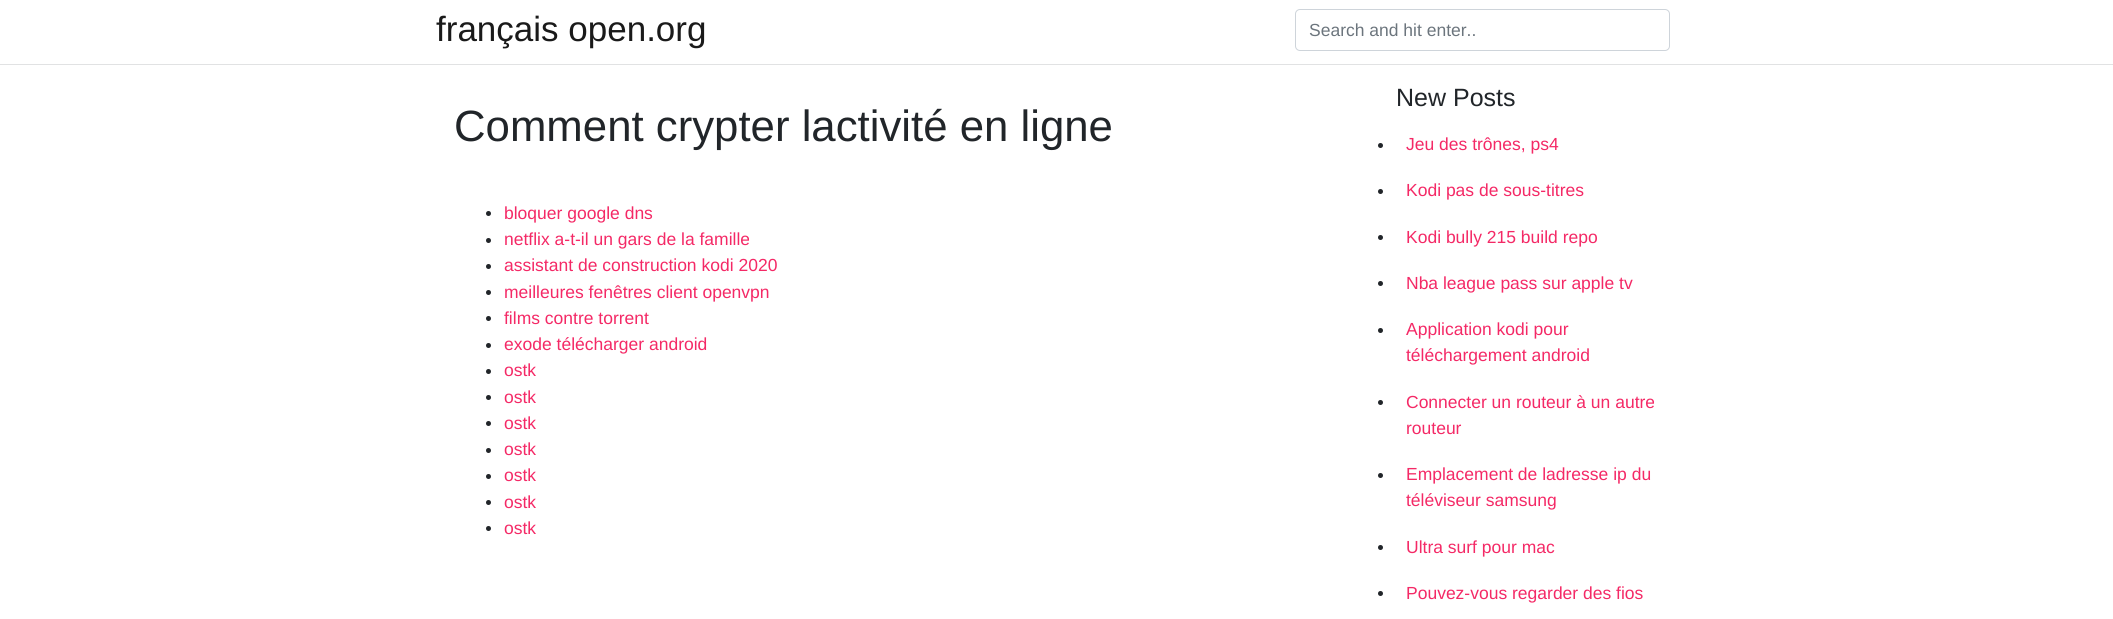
#include <cairo/cairo.h>
#include <math.h>
#include <stddef.h>


static void rounded_rect(cairo_t *cr, double x, double y, double w, double h, double r) {
  cairo_new_sub_path(cr);
  cairo_arc(cr, x + w - r, y + h - r, r, 0, M_PI / 2);
  cairo_arc(cr, x + r, y + h - r, r, M_PI / 2, M_PI);
  cairo_arc(cr, x + r, y + r, r, M_PI, 1.5 * M_PI);
  cairo_arc(cr, x + w - r, y + r, r, 1.5 * M_PI, 2 * M_PI);
  cairo_close_path(cr);
}

static void draw(cairo_t *cr) {
  cairo_set_source_rgb(cr, 1, 1, 1);
  cairo_paint(cr);
  cairo_set_source_rgb(cr, 225 / 255.0, 226 / 255.0, 227 / 255.0);
  cairo_rectangle(cr, 0, 64, 2113, 1);
  cairo_fill(cr);
  rounded_rect(cr, 1295.5, 9.5, 374, 41, 4.5);
  cairo_set_source_rgb(cr, 206 / 255.0, 212 / 255.0, 218 / 255.0);
  cairo_set_line_width(cr, 1);
  cairo_stroke(cr);
  cairo_set_source_rgb(cr, 33 / 255.0, 37 / 255.0, 41 / 255.0);
  cairo_arc(cr, 488.5, 213.5, 2.5, 0, 2 * M_PI);
  cairo_fill(cr);
  cairo_arc(cr, 488.5, 240.5, 2.5, 0, 2 * M_PI);
  cairo_fill(cr);
  cairo_arc(cr, 488.5, 266.5, 2.5, 0, 2 * M_PI);
  cairo_fill(cr);
  cairo_arc(cr, 488.5, 292.5, 2.5, 0, 2 * M_PI);
  cairo_fill(cr);
  cairo_arc(cr, 488.5, 318.5, 2.5, 0, 2 * M_PI);
  cairo_fill(cr);
  cairo_arc(cr, 488.5, 345.5, 2.5, 0, 2 * M_PI);
  cairo_fill(cr);
  cairo_arc(cr, 488.5, 371.5, 2.5, 0, 2 * M_PI);
  cairo_fill(cr);
  cairo_arc(cr, 488.5, 397.5, 2.5, 0, 2 * M_PI);
  cairo_fill(cr);
  cairo_arc(cr, 488.5, 423.5, 2.5, 0, 2 * M_PI);
  cairo_fill(cr);
  cairo_arc(cr, 488.5, 450.5, 2.5, 0, 2 * M_PI);
  cairo_fill(cr);
  cairo_arc(cr, 488.5, 476.5, 2.5, 0, 2 * M_PI);
  cairo_fill(cr);
  cairo_arc(cr, 488.5, 502.5, 2.5, 0, 2 * M_PI);
  cairo_fill(cr);
  cairo_arc(cr, 488.5, 528.5, 2.5, 0, 2 * M_PI);
  cairo_fill(cr);
  cairo_arc(cr, 1380.5, 145.5, 2.5, 0, 2 * M_PI);
  cairo_fill(cr);
  cairo_arc(cr, 1380.5, 191.5, 2.5, 0, 2 * M_PI);
  cairo_fill(cr);
  cairo_arc(cr, 1380.5, 237.5, 2.5, 0, 2 * M_PI);
  cairo_fill(cr);
  cairo_arc(cr, 1380.5, 283.5, 2.5, 0, 2 * M_PI);
  cairo_fill(cr);
  cairo_arc(cr, 1380.5, 330.5, 2.5, 0, 2 * M_PI);
  cairo_fill(cr);
  cairo_arc(cr, 1380.5, 402.5, 2.5, 0, 2 * M_PI);
  cairo_fill(cr);
  cairo_arc(cr, 1380.5, 475.5, 2.5, 0, 2 * M_PI);
  cairo_fill(cr);
  cairo_arc(cr, 1380.5, 547.5, 2.5, 0, 2 * M_PI);
  cairo_fill(cr);
  cairo_arc(cr, 1380.5, 593.5, 2.5, 0, 2 * M_PI);
  cairo_fill(cr);
  cairo_select_font_face(cr, "Liberation Sans", CAIRO_FONT_SLANT_NORMAL, CAIRO_FONT_WEIGHT_NORMAL);
  cairo_set_font_size(cr, 35);
  cairo_set_source_rgb(cr, 26 / 255.0, 26 / 255.0, 26 / 255.0);
  cairo_move_to(cr, 436, 41);
  cairo_show_text(cr, "français open.org");
  cairo_set_font_size(cr, 17.5);
  cairo_set_source_rgb(cr, 108 / 255.0, 117 / 255.0, 125 / 255.0);
  cairo_move_to(cr, 1309, 36);
  cairo_show_text(cr, "Search and hit enter..");
  cairo_set_font_size(cr, 43.75);
  cairo_set_source_rgb(cr, 33 / 255.0, 37 / 255.0, 41 / 255.0);
  cairo_move_to(cr, 454, 141);
  cairo_show_text(cr, "Comment crypter lactivité en ligne");
  cairo_set_font_size(cr, 17.5);
  cairo_set_source_rgb(cr, 244 / 255.0, 41 / 255.0, 102 / 255.0);
  cairo_move_to(cr, 504, 219);
  cairo_show_text(cr, "bloquer google dns");
  cairo_move_to(cr, 504, 245);
  cairo_show_text(cr, "netflix a-t-il un gars de la famille");
  cairo_move_to(cr, 504, 271);
  cairo_show_text(cr, "assistant de construction kodi 2020");
  cairo_move_to(cr, 504, 298);
  cairo_show_text(cr, "meilleures fenêtres client openvpn");
  cairo_move_to(cr, 504, 324);
  cairo_show_text(cr, "films contre torrent");
  cairo_move_to(cr, 504, 350);
  cairo_show_text(cr, "exode télécharger android");
  cairo_move_to(cr, 504, 376);
  cairo_show_text(cr, "ostk");
  cairo_move_to(cr, 504, 403);
  cairo_show_text(cr, "ostk");
  cairo_move_to(cr, 504, 429);
  cairo_show_text(cr, "ostk");
  cairo_move_to(cr, 504, 455);
  cairo_show_text(cr, "ostk");
  cairo_move_to(cr, 504, 481);
  cairo_show_text(cr, "ostk");
  cairo_move_to(cr, 504, 508);
  cairo_show_text(cr, "ostk");
  cairo_move_to(cr, 504, 534);
  cairo_show_text(cr, "ostk");
  cairo_set_font_size(cr, 25);
  cairo_set_source_rgb(cr, 33 / 255.0, 37 / 255.0, 41 / 255.0);
  cairo_move_to(cr, 1396, 106);
  cairo_show_text(cr, "New Posts");
  cairo_set_font_size(cr, 17.5);
  cairo_set_source_rgb(cr, 244 / 255.0, 41 / 255.0, 102 / 255.0);
  cairo_move_to(cr, 1406, 150);
  cairo_show_text(cr, "Jeu des trônes, ps4");
  cairo_move_to(cr, 1406, 196);
  cairo_show_text(cr, "Kodi pas de sous-titres");
  cairo_move_to(cr, 1406, 243);
  cairo_show_text(cr, "Kodi bully 215 build repo");
  cairo_move_to(cr, 1406, 289);
  cairo_show_text(cr, "Nba league pass sur apple tv");
  cairo_move_to(cr, 1406, 335);
  cairo_show_text(cr, "Application kodi pour");
  cairo_move_to(cr, 1406, 361);
  cairo_show_text(cr, "téléchargement android");
  cairo_move_to(cr, 1406, 408);
  cairo_show_text(cr, "Connecter un routeur à un autre");
  cairo_move_to(cr, 1406, 434);
  cairo_show_text(cr, "routeur");
  cairo_move_to(cr, 1406, 480);
  cairo_show_text(cr, "Emplacement de ladresse ip du");
  cairo_move_to(cr, 1406, 506);
  cairo_show_text(cr, "téléviseur samsung");
  cairo_move_to(cr, 1406, 553);
  cairo_show_text(cr, "Ultra surf pour mac");
  cairo_move_to(cr, 1406, 599);
  cairo_show_text(cr, "Pouvez-vous regarder des fios");
}

int main(void) {
  cairo_surface_t *surface = cairo_image_surface_create(CAIRO_FORMAT_RGB24, 2113, 619);
  cairo_t *cr = cairo_create(surface);
  cairo_font_options_t *options = cairo_font_options_create();
  cairo_font_options_set_hint_metrics(options, CAIRO_HINT_METRICS_OFF);
  cairo_font_options_set_hint_style(options, CAIRO_HINT_STYLE_NONE);
  cairo_set_font_options(cr, options);
  cairo_set_miter_limit(cr, 4);
  draw(cr);
  cairo_surface_write_to_png(surface, "out.png");
  cairo_font_options_destroy(options);
  cairo_destroy(cr);
  cairo_surface_destroy(surface);
  return 0;
}
